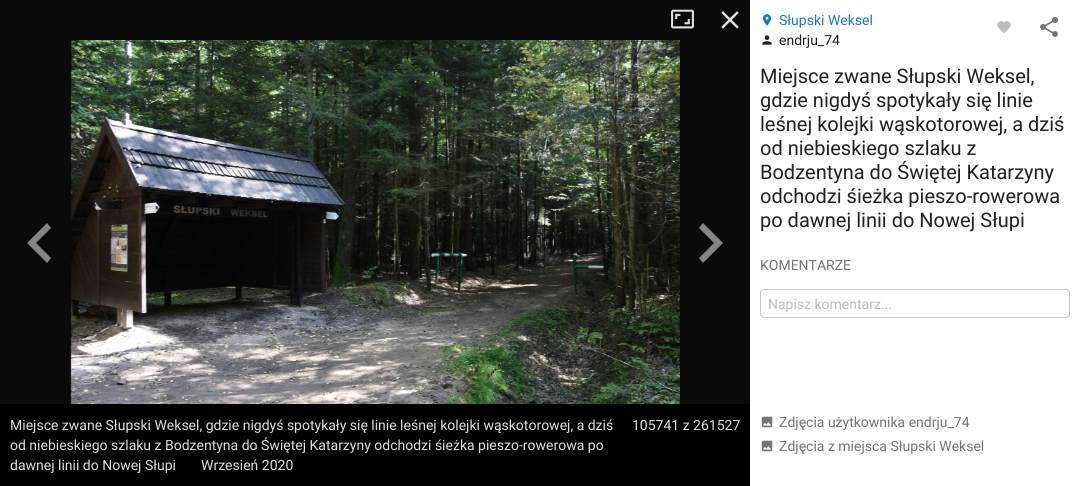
#include <cairo/cairo.h>
#include <math.h>
#include <stddef.h>


static void rounded_rect(cairo_t *cr, double x, double y, double w, double h, double r) {
  cairo_new_sub_path(cr);
  cairo_arc(cr, x + w - r, y + h - r, r, 0, M_PI / 2);
  cairo_arc(cr, x + r, y + h - r, r, M_PI / 2, M_PI);
  cairo_arc(cr, x + r, y + r, r, M_PI, 1.5 * M_PI);
  cairo_arc(cr, x + w - r, y + r, r, 1.5 * M_PI, 2 * M_PI);
  cairo_close_path(cr);
}

static void draw_image(cairo_t *cr, const char *path, double x, double y, double w, double h) {
  cairo_surface_t *image = cairo_image_surface_create_from_png(path);
  cairo_save(cr);
  cairo_set_source_surface(cr, image, x, y);
  cairo_rectangle(cr, x, y, w, h);
  cairo_fill(cr);
  cairo_restore(cr);
  cairo_surface_destroy(image);
}

static void draw(cairo_t *cr) {
  cairo_set_source_rgb(cr, 10 / 255.0, 10 / 255.0, 10 / 255.0);
  cairo_paint(cr);
  draw_image(cr, "images/1.png", 671, 9, 23, 20);
  draw_image(cr, "images/2.png", 721, 11, 18, 18);
  cairo_set_source_rgb(cr, 133 / 255.0, 133 / 255.0, 133 / 255.0);
  cairo_new_path(cr);
  cairo_move_to(cr, 51, 228);
  cairo_line_to(cr, 47, 223);
  cairo_line_to(cr, 27, 243);
  cairo_line_to(cr, 47, 263);
  cairo_line_to(cr, 51, 258);
  cairo_line_to(cr, 36, 243);
  cairo_close_path(cr);
  cairo_fill(cr);
  draw_image(cr, "images/3.png", 70, 40, 610, 364);
  cairo_new_path(cr);
  cairo_move_to(cr, 703, 223);
  cairo_line_to(cr, 699, 228);
  cairo_line_to(cr, 714, 243);
  cairo_line_to(cr, 699, 258);
  cairo_line_to(cr, 703, 263);
  cairo_line_to(cr, 723, 243);
  cairo_close_path(cr);
  cairo_fill(cr);
  cairo_set_source_rgb(cr, 0, 0, 0);
  cairo_rectangle(cr, 0, 404, 750, 82);
  cairo_fill(cr);
  cairo_set_source_rgb(cr, 1, 1, 1);
  cairo_rectangle(cr, 750, 0, 330, 486);
  cairo_fill(cr);
  draw_image(cr, "images/4.png", 762, 14, 10, 12);
  draw_image(cr, "images/5.png", 762, 35, 10, 10);
  draw_image(cr, "images/6.png", 997, 21, 14, 12);
  draw_image(cr, "images/7.png", 1040, 17, 18, 20);
  rounded_rect(cr, 760.5, 289.5, 309, 28, 3.5);
  cairo_set_source_rgb(cr, 200 / 255.0, 200 / 255.0, 200 / 255.0);
  cairo_set_line_width(cr, 1);
  cairo_stroke(cr);
  draw_image(cr, "images/8.png", 761, 416, 12, 12);
  draw_image(cr, "images/8.png", 761, 440, 12, 12);
  cairo_select_font_face(cr, "Roboto", CAIRO_FONT_SLANT_NORMAL, CAIRO_FONT_WEIGHT_NORMAL);
  cairo_set_font_size(cr, 14);
  cairo_set_source_rgb(cr, 222 / 255.0, 222 / 255.0, 222 / 255.0);
  cairo_move_to(cr, 10, 430);
  cairo_show_text(cr, "Miejsce zwane Słupski Weksel, gdzie nigdyś spotykały się linie leśnej kolejki wąskotorowej, a dziś");
  cairo_move_to(cr, 10, 450);
  cairo_show_text(cr, "od niebieskiego szlaku z Bodzentyna do Świętej Katarzyny odchodzi śieżka pieszo-rowerowa po");
  cairo_move_to(cr, 10, 470);
  cairo_show_text(cr, "dawnej linii do Nowej Słupi");
  cairo_move_to(cr, 201, 470);
  cairo_show_text(cr, "Wrzesień 2020");
  cairo_move_to(cr, 632, 430);
  cairo_show_text(cr, "105741 z 261527");
  cairo_set_source_rgb(cr, 25 / 255.0, 118 / 255.0, 210 / 255.0);
  cairo_move_to(cr, 779, 25);
  cairo_show_text(cr, "Słupski Weksel");
  cairo_set_source_rgb(cr, 33 / 255.0, 33 / 255.0, 33 / 255.0);
  cairo_move_to(cr, 779, 45);
  cairo_show_text(cr, "endrju_74");
  cairo_set_font_size(cr, 20);
  cairo_move_to(cr, 760, 83);
  cairo_show_text(cr, "Miejsce zwane Słupski Weksel,");
  cairo_move_to(cr, 760, 107);
  cairo_show_text(cr, "gdzie nigdyś spotykały się linie");
  cairo_move_to(cr, 760, 131);
  cairo_show_text(cr, "leśnej kolejki wąskotorowej, a dziś");
  cairo_move_to(cr, 760, 155);
  cairo_show_text(cr, "od niebieskiego szlaku z");
  cairo_move_to(cr, 760, 179);
  cairo_show_text(cr, "Bodzentyna do Świętej Katarzyny");
  cairo_move_to(cr, 760, 203);
  cairo_show_text(cr, "odchodzi śieżka pieszo-rowerowa");
  cairo_move_to(cr, 760, 227);
  cairo_show_text(cr, "po dawnej linii do Nowej Słupi");
  cairo_set_font_size(cr, 14);
  cairo_set_source_rgb(cr, 117 / 255.0, 117 / 255.0, 117 / 255.0);
  cairo_move_to(cr, 760, 270);
  cairo_show_text(cr, "KOMENTARZE");
  cairo_set_source_rgb(cr, 189 / 255.0, 189 / 255.0, 189 / 255.0);
  cairo_move_to(cr, 768, 309);
  cairo_show_text(cr, "Napisz komentarz...");
  cairo_set_source_rgb(cr, 117 / 255.0, 117 / 255.0, 117 / 255.0);
  cairo_move_to(cr, 779, 427);
  cairo_show_text(cr, "Zdjęcia użytkownika endrju_74");
  cairo_move_to(cr, 779, 451);
  cairo_show_text(cr, "Zdjęcia z miejsca Słupski Weksel");
}

int main(void) {
  cairo_surface_t *surface = cairo_image_surface_create(CAIRO_FORMAT_RGB24, 1080, 486);
  cairo_t *cr = cairo_create(surface);
  cairo_font_options_t *options = cairo_font_options_create();
  cairo_font_options_set_hint_metrics(options, CAIRO_HINT_METRICS_OFF);
  cairo_font_options_set_hint_style(options, CAIRO_HINT_STYLE_NONE);
  cairo_set_font_options(cr, options);
  cairo_set_miter_limit(cr, 4);
  draw(cr);
  cairo_surface_write_to_png(surface, "out.png");
  cairo_font_options_destroy(options);
  cairo_destroy(cr);
  cairo_surface_destroy(surface);
  return 0;
}
